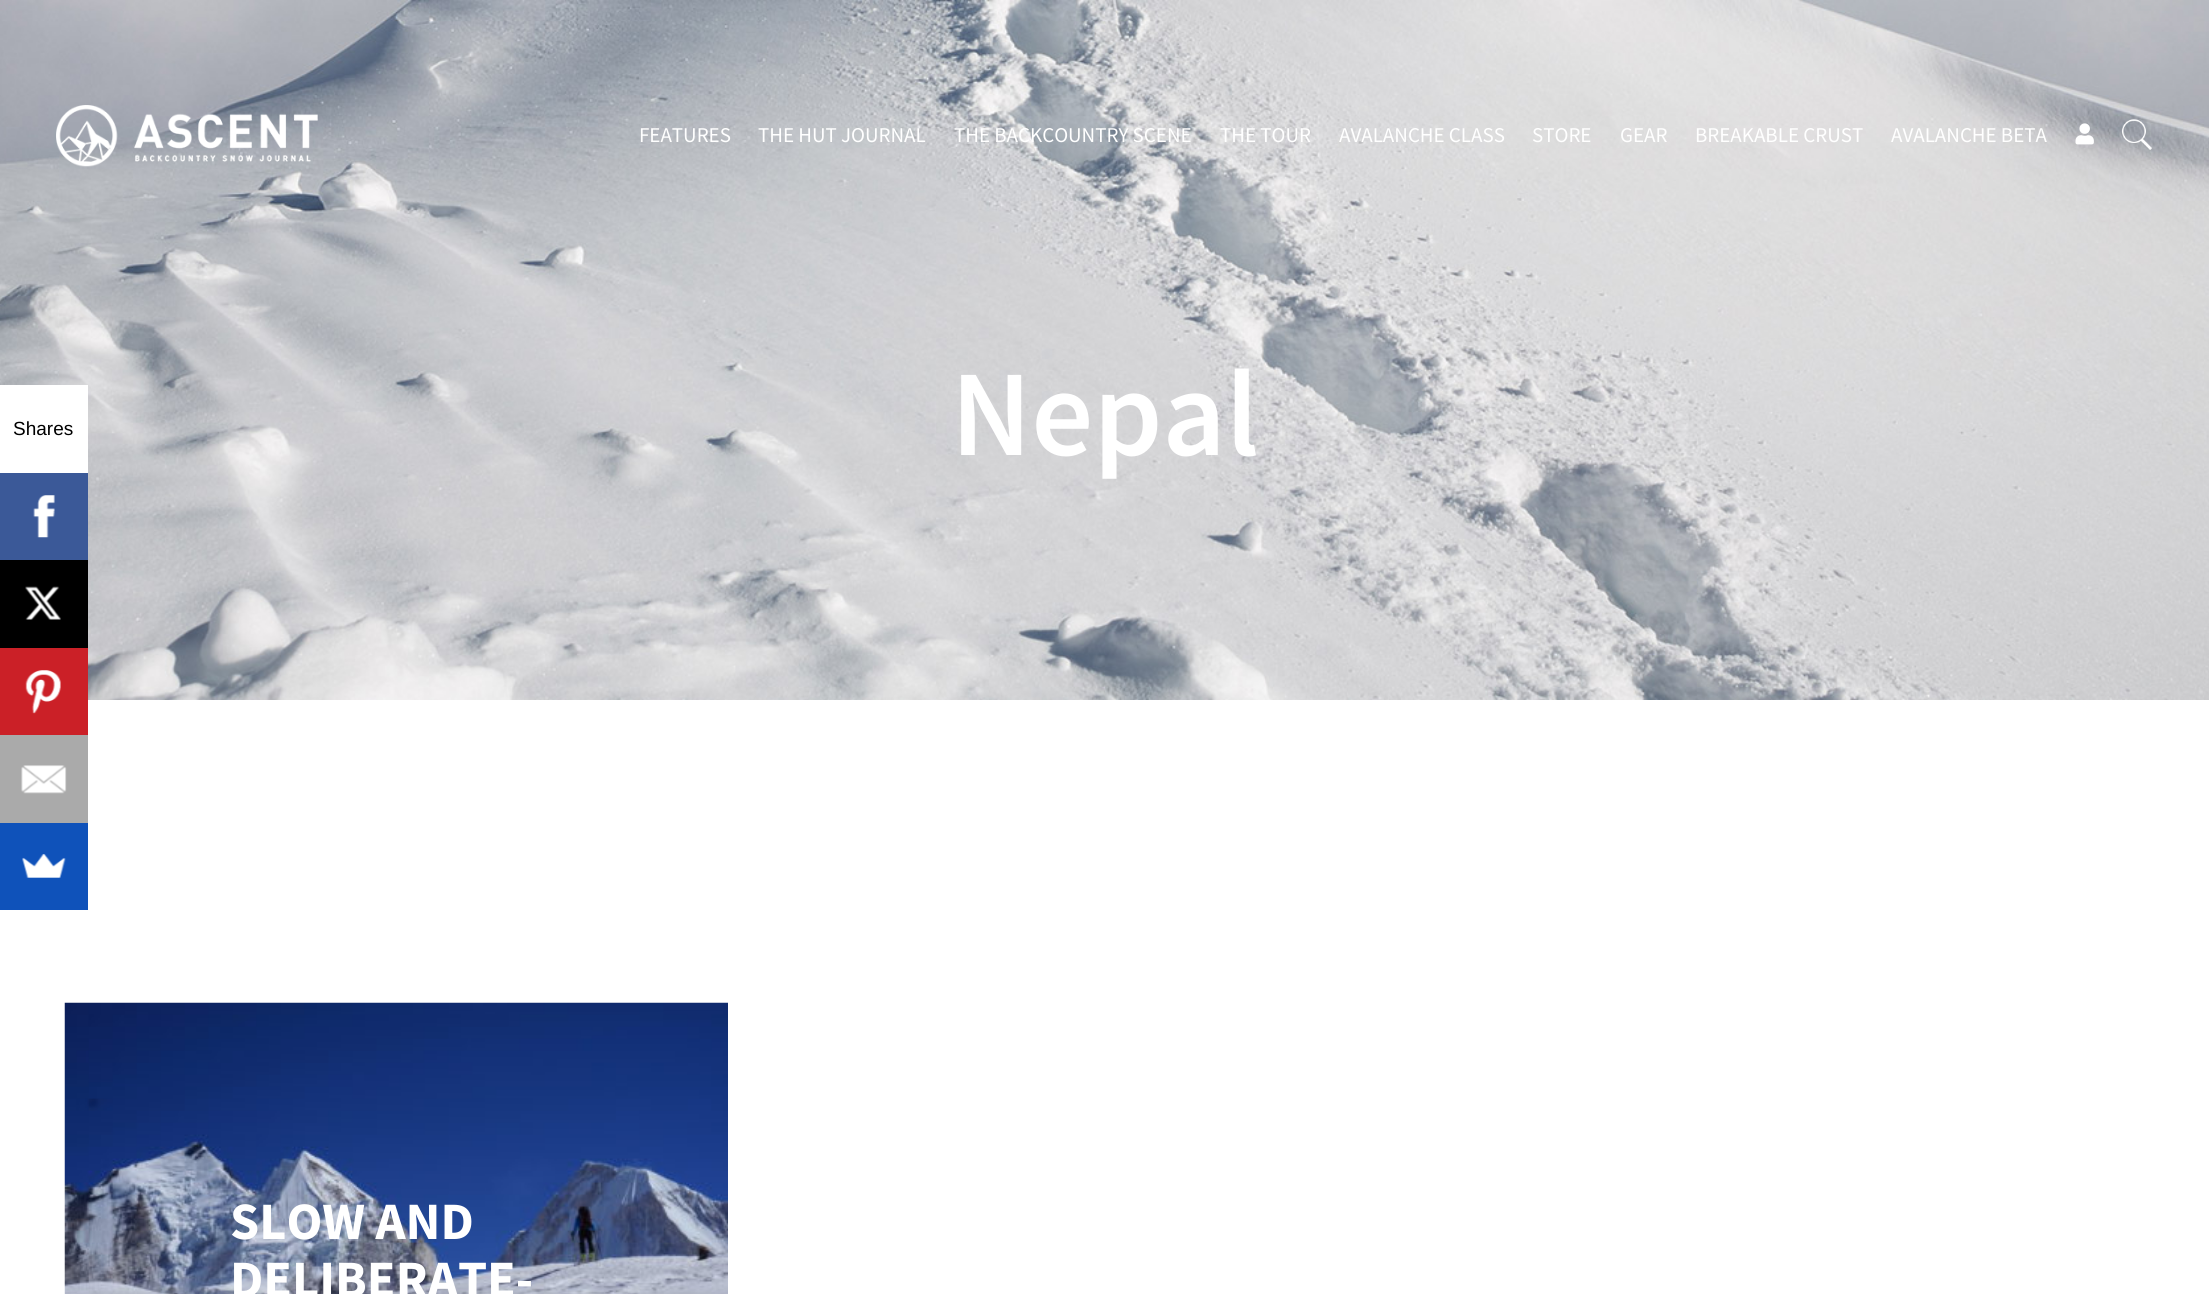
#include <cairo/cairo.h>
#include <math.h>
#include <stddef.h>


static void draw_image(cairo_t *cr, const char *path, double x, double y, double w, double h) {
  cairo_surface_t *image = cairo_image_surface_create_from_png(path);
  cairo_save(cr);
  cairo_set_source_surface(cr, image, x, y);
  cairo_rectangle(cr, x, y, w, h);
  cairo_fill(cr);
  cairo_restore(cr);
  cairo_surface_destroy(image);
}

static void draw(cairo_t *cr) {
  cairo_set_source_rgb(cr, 1, 1, 1);
  cairo_paint(cr);
  draw_image(cr, "images/9.png", 0, 0, 2209, 700);
  cairo_set_source_rgb(cr, 1, 1, 1);
  cairo_rectangle(cr, 0, 385, 88, 88);
  cairo_fill(cr);
  cairo_set_source_rgb(cr, 59 / 255.0, 89 / 255.0, 152 / 255.0);
  cairo_rectangle(cr, 0, 473, 88, 87);
  cairo_fill(cr);
  draw_image(cr, "images/1.png", 33, 495, 22, 43);
  cairo_set_source_rgb(cr, 0, 0, 0);
  cairo_rectangle(cr, 0, 560, 88, 88);
  cairo_fill(cr);
  draw_image(cr, "images/2.png", 25, 586, 36, 34);
  cairo_set_source_rgb(cr, 203 / 255.0, 32 / 255.0, 39 / 255.0);
  cairo_rectangle(cr, 0, 648, 88, 87);
  cairo_fill(cr);
  draw_image(cr, "images/3.png", 25, 670, 36, 44);
  cairo_set_source_rgb(cr, 170 / 255.0, 170 / 255.0, 170 / 255.0);
  cairo_rectangle(cr, 0, 735, 88, 88);
  cairo_fill(cr);
  draw_image(cr, "images/4.png", 21, 765, 46, 29);
  cairo_set_source_rgb(cr, 15 / 255.0, 82 / 255.0, 186 / 255.0);
  cairo_rectangle(cr, 0, 823, 88, 87);
  cairo_fill(cr);
  draw_image(cr, "images/5.png", 22, 854, 44, 24);
  draw_image(cr, "images/6.png", 56, 105, 262, 62);
  draw_image(cr, "images/7.png", 2075, 123, 19, 22);
  draw_image(cr, "images/8.png", 2122, 119, 30, 31);
  draw_image(cr, "images/10.png", 64, 1002, 664, 292);
  cairo_select_font_face(cr, "Liberation Sans", CAIRO_FONT_SLANT_NORMAL, CAIRO_FONT_WEIGHT_NORMAL);
  cairo_set_font_size(cr, 19);
  cairo_set_source_rgb(cr, 0, 0, 0);
  cairo_move_to(cr, 13, 435);
  cairo_show_text(cr, "Shares");
  cairo_select_font_face(cr, "Source Sans Pro", CAIRO_FONT_SLANT_NORMAL, CAIRO_FONT_WEIGHT_NORMAL);
  cairo_set_font_size(cr, 21);
  cairo_set_source_rgb(cr, 1, 1, 1);
  cairo_move_to(cr, 639, 142);
  cairo_show_text(cr, "FEATURES");
  cairo_move_to(cr, 758, 142);
  cairo_show_text(cr, "THE HUT JOURNAL");
  cairo_move_to(cr, 954, 142);
  cairo_show_text(cr, "THE BACKCOUNTRY SCENE");
  cairo_move_to(cr, 1220, 142);
  cairo_show_text(cr, "THE TOUR");
  cairo_move_to(cr, 1339, 142);
  cairo_show_text(cr, "AVALANCHE CLASS");
  cairo_move_to(cr, 1532, 142);
  cairo_show_text(cr, "STORE");
  cairo_move_to(cr, 1620, 142);
  cairo_show_text(cr, "GEAR");
  cairo_move_to(cr, 1695, 142);
  cairo_show_text(cr, "BREAKABLE CRUST");
  cairo_move_to(cr, 1891, 142);
  cairo_show_text(cr, "AVALANCHE BETA");
  cairo_select_font_face(cr, "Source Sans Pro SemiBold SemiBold", CAIRO_FONT_SLANT_NORMAL, CAIRO_FONT_WEIGHT_NORMAL);
  cairo_set_font_size(cr, 122.5);
  cairo_move_to(cr, 951, 455);
  cairo_show_text(cr, "Nepal");
  cairo_select_font_face(cr, "Source Sans Pro", CAIRO_FONT_SLANT_NORMAL, CAIRO_FONT_WEIGHT_BOLD);
  cairo_set_font_size(cr, 52.5);
  cairo_move_to(cr, 230, 1239);
  cairo_show_text(cr, "SLOW AND");
  cairo_move_to(cr, 230, 1297);
  cairo_show_text(cr, "DELIBERATE-");
}

int main(void) {
  cairo_surface_t *surface = cairo_image_surface_create(CAIRO_FORMAT_RGB24, 2209, 1294);
  cairo_t *cr = cairo_create(surface);
  cairo_font_options_t *options = cairo_font_options_create();
  cairo_font_options_set_hint_metrics(options, CAIRO_HINT_METRICS_OFF);
  cairo_font_options_set_hint_style(options, CAIRO_HINT_STYLE_NONE);
  cairo_set_font_options(cr, options);
  cairo_set_miter_limit(cr, 4);
  draw(cr);
  cairo_surface_write_to_png(surface, "out.png");
  cairo_font_options_destroy(options);
  cairo_destroy(cr);
  cairo_surface_destroy(surface);
  return 0;
}
